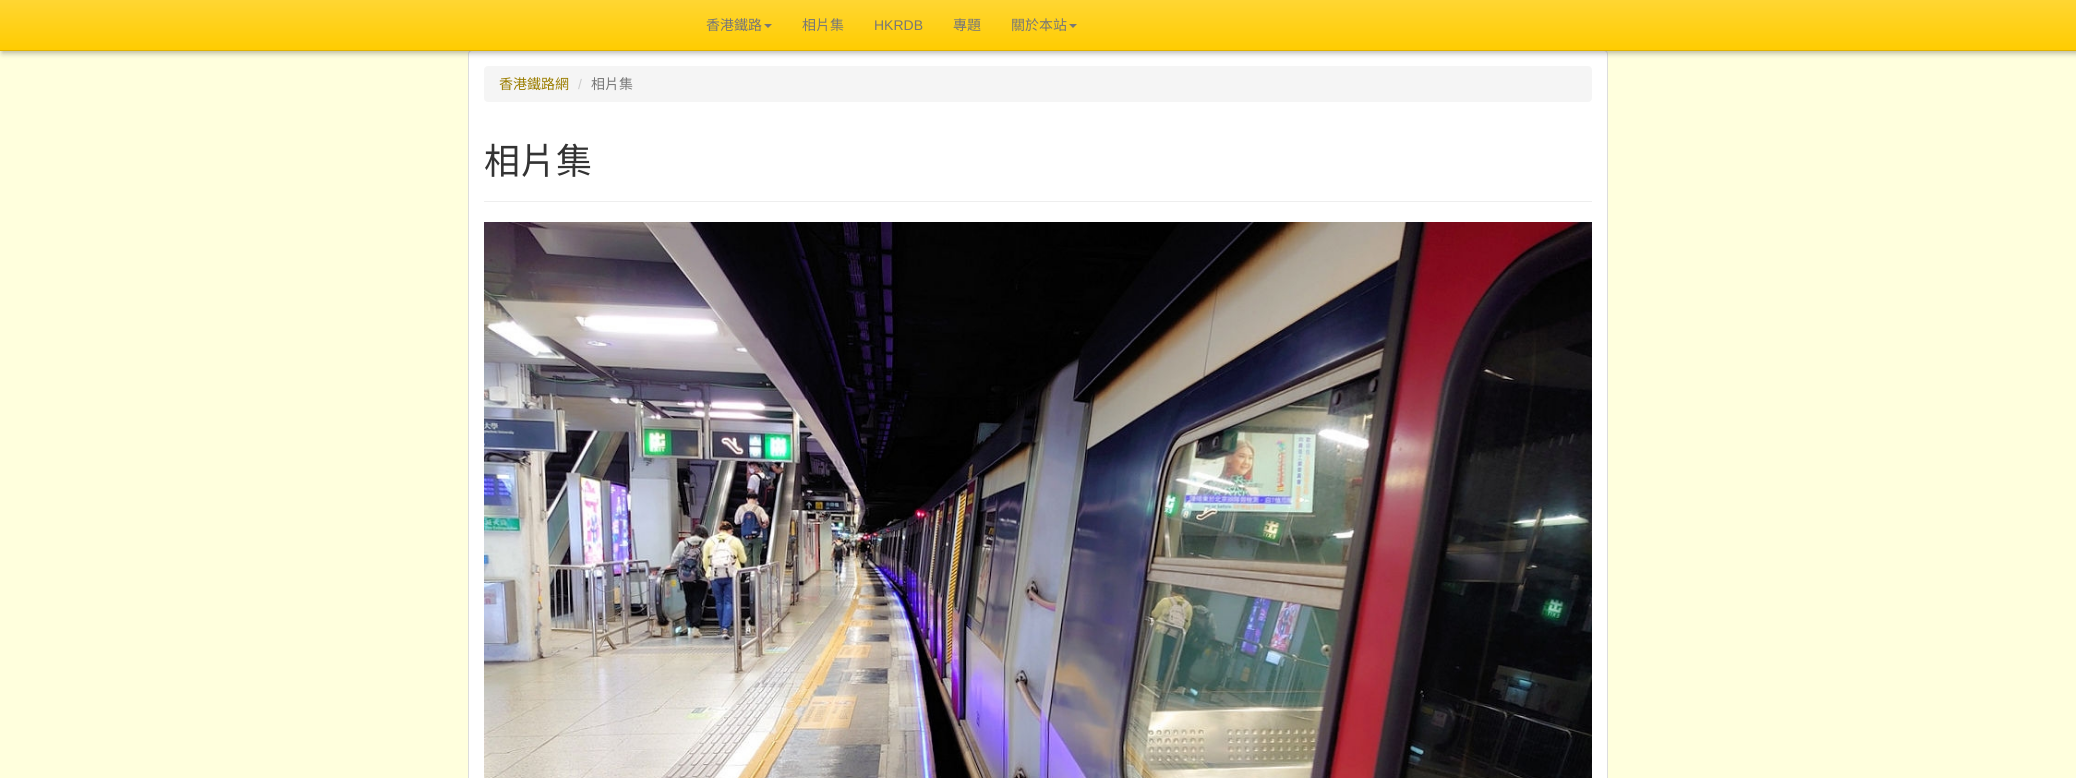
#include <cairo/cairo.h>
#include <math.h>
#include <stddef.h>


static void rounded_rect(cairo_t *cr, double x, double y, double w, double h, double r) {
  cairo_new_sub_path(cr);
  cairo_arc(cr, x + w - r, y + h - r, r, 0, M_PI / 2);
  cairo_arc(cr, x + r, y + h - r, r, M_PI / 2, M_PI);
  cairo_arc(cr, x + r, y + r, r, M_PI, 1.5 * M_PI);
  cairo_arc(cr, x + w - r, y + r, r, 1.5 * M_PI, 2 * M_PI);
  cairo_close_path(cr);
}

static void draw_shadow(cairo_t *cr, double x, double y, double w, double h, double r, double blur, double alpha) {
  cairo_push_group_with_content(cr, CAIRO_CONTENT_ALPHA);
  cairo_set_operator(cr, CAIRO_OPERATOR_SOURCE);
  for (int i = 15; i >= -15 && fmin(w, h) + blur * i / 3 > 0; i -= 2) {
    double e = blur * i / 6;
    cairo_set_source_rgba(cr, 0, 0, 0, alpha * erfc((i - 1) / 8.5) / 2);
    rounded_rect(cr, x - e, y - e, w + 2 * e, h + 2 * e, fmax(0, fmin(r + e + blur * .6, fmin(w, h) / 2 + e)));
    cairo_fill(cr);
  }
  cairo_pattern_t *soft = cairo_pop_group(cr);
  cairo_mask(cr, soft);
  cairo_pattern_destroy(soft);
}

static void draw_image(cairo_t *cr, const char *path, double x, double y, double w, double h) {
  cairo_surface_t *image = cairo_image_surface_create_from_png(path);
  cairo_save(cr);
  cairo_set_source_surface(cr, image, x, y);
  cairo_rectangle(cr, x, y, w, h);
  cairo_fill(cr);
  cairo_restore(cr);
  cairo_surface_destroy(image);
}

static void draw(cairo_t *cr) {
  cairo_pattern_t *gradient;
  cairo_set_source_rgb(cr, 1, 1, 221 / 255.0);
  cairo_paint(cr);
  cairo_set_source_rgb(cr, 1, 1, 1);
  rounded_rect(cr, 468.5, 50.5, 1139, 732, 3.5);
  cairo_fill_preserve(cr);
  cairo_set_source_rgb(cr, 221 / 255.0, 221 / 255.0, 221 / 255.0);
  cairo_set_line_width(cr, 1);
  cairo_stroke(cr);
  cairo_set_source_rgb(cr, 0, 0, 0);
  draw_shadow(cr, 2, 2, 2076, 51, 0, 3, 0.3);
  gradient = cairo_pattern_create_linear(1038, 0, 1038, 50);
  cairo_pattern_add_color_stop_rgba(gradient, 0, 1, 214 / 255.0, 51 / 255.0, 1);
  cairo_pattern_add_color_stop_rgba(gradient, 1, 1, 204 / 255.0, 0, 1);
  cairo_set_source(cr, gradient);
  cairo_pattern_destroy(gradient);
  cairo_rectangle(cr, 0, 0, 2076, 50);
  cairo_fill(cr);
  cairo_set_source_rgb(cr, 222 / 255.0, 177 / 255.0, 0);
  cairo_rectangle(cr, 0, 50, 2076, 1);
  cairo_fill(cr);
  cairo_set_source_rgb(cr, 119 / 255.0, 119 / 255.0, 119 / 255.0);
  cairo_new_path(cr);
  cairo_move_to(cr, 764, 24);
  cairo_line_to(cr, 772, 24);
  cairo_line_to(cr, 768, 28);
  cairo_close_path(cr);
  cairo_fill(cr);
  cairo_new_path(cr);
  cairo_move_to(cr, 1069, 24);
  cairo_line_to(cr, 1077, 24);
  cairo_line_to(cr, 1073, 28);
  cairo_close_path(cr);
  cairo_fill(cr);
  cairo_set_source_rgb(cr, 245 / 255.0, 245 / 255.0, 245 / 255.0);
  rounded_rect(cr, 484, 66, 1108, 36, 4);
  cairo_fill(cr);
  cairo_set_source_rgb(cr, 238 / 255.0, 238 / 255.0, 238 / 255.0);
  cairo_rectangle(cr, 484, 201, 1108, 1);
  cairo_fill(cr);
  draw_image(cr, "images/1.png", 484, 222, 1108, 556);
  cairo_select_font_face(cr, "Noto Sans CJK TC", CAIRO_FONT_SLANT_NORMAL, CAIRO_FONT_WEIGHT_NORMAL);
  cairo_set_font_size(cr, 14);
  cairo_set_source_rgb(cr, 119 / 255.0, 119 / 255.0, 119 / 255.0);
  cairo_move_to(cr, 706, 30);
  cairo_show_text(cr, "香港鐵路");
  cairo_move_to(cr, 802, 30);
  cairo_show_text(cr, "相片集");
  cairo_select_font_face(cr, "Liberation Sans", CAIRO_FONT_SLANT_NORMAL, CAIRO_FONT_WEIGHT_NORMAL);
  cairo_move_to(cr, 874, 30);
  cairo_show_text(cr, "HKRDB");
  cairo_select_font_face(cr, "Noto Sans CJK TC", CAIRO_FONT_SLANT_NORMAL, CAIRO_FONT_WEIGHT_NORMAL);
  cairo_move_to(cr, 953, 30);
  cairo_show_text(cr, "專題");
  cairo_move_to(cr, 1011, 30);
  cairo_show_text(cr, "關於本站");
  cairo_set_source_rgb(cr, 155 / 255.0, 125 / 255.0, 0);
  cairo_move_to(cr, 499, 89);
  cairo_show_text(cr, "香港鐵路網");
  cairo_select_font_face(cr, "Liberation Sans", CAIRO_FONT_SLANT_NORMAL, CAIRO_FONT_WEIGHT_NORMAL);
  cairo_set_source_rgb(cr, 204 / 255.0, 204 / 255.0, 204 / 255.0);
  cairo_move_to(cr, 578, 89);
  cairo_show_text(cr, "/");
  cairo_select_font_face(cr, "Noto Sans CJK TC", CAIRO_FONT_SLANT_NORMAL, CAIRO_FONT_WEIGHT_NORMAL);
  cairo_set_source_rgb(cr, 119 / 255.0, 119 / 255.0, 119 / 255.0);
  cairo_move_to(cr, 591, 89);
  cairo_show_text(cr, "相片集");
  cairo_set_font_size(cr, 36);
  cairo_set_source_rgb(cr, 51 / 255.0, 51 / 255.0, 51 / 255.0);
  cairo_move_to(cr, 484, 174);
  cairo_show_text(cr, "相片集");
}

int main(void) {
  cairo_surface_t *surface = cairo_image_surface_create(CAIRO_FORMAT_RGB24, 2076, 778);
  cairo_t *cr = cairo_create(surface);
  cairo_font_options_t *options = cairo_font_options_create();
  cairo_font_options_set_hint_metrics(options, CAIRO_HINT_METRICS_OFF);
  cairo_font_options_set_hint_style(options, CAIRO_HINT_STYLE_NONE);
  cairo_set_font_options(cr, options);
  cairo_set_miter_limit(cr, 4);
  draw(cr);
  cairo_surface_write_to_png(surface, "out.png");
  cairo_font_options_destroy(options);
  cairo_destroy(cr);
  cairo_surface_destroy(surface);
  return 0;
}
